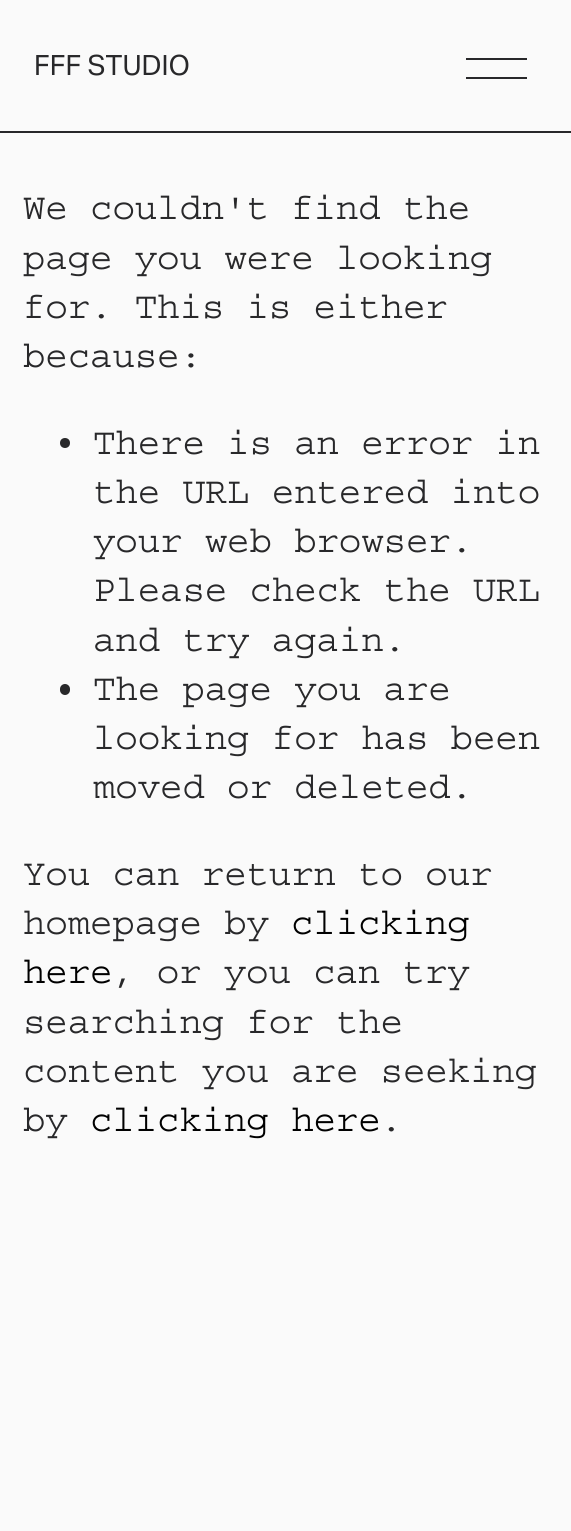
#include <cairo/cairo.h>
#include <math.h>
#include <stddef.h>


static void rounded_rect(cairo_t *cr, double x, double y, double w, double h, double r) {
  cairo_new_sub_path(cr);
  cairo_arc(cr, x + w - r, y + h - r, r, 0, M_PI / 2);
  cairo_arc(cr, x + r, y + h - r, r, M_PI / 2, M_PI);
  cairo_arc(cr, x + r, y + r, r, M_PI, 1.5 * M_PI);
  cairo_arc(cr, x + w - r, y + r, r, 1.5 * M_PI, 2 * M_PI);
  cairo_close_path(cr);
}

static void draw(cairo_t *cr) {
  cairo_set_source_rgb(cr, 250 / 255.0, 250 / 255.0, 250 / 255.0);
  cairo_paint(cr);
  cairo_set_source_rgb(cr, 40 / 255.0, 40 / 255.0, 42 / 255.0);
  cairo_rectangle(cr, 466, 58, 61, 2);
  cairo_fill(cr);
  cairo_rectangle(cr, 466, 77, 61, 2);
  cairo_fill(cr);
  cairo_rectangle(cr, 0, 131, 571, 2);
  cairo_fill(cr);
  cairo_arc(cr, 65, 443, 5, 0, 2 * M_PI);
  cairo_fill(cr);
  rounded_rect(cr, 60, 684, 10, 11, 5);
  cairo_fill(cr);
  cairo_select_font_face(cr, "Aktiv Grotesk", CAIRO_FONT_SLANT_NORMAL, CAIRO_FONT_WEIGHT_NORMAL);
  cairo_set_font_size(cr, 28);
  cairo_move_to(cr, 34, 75);
  cairo_show_text(cr, "FFF STUDIO");
  cairo_select_font_face(cr, "Courier Medium", CAIRO_FONT_SLANT_NORMAL, CAIRO_FONT_WEIGHT_NORMAL);
  cairo_set_font_size(cr, 37.25);
  cairo_move_to(cr, 23, 219);
  cairo_show_text(cr, "We couldn't find the");
  cairo_move_to(cr, 23, 269);
  cairo_show_text(cr, "page you were looking");
  cairo_move_to(cr, 23, 318);
  cairo_show_text(cr, "for. This is either");
  cairo_move_to(cr, 23, 367);
  cairo_show_text(cr, "because:");
  cairo_move_to(cr, 93, 454);
  cairo_show_text(cr, "There is an error in");
  cairo_move_to(cr, 93, 503);
  cairo_show_text(cr, "the URL entered into");
  cairo_move_to(cr, 93, 552);
  cairo_show_text(cr, "your web browser.");
  cairo_move_to(cr, 93, 601);
  cairo_show_text(cr, "Please check the URL");
  cairo_move_to(cr, 93, 651);
  cairo_show_text(cr, "and try again.");
  cairo_move_to(cr, 93, 700);
  cairo_show_text(cr, "The page you are");
  cairo_move_to(cr, 93, 749);
  cairo_show_text(cr, "looking for has been");
  cairo_move_to(cr, 93, 798);
  cairo_show_text(cr, "moved or deleted.");
  cairo_move_to(cr, 23, 885);
  cairo_show_text(cr, "You can return to our");
  cairo_move_to(cr, 23, 934);
  cairo_show_text(cr, "homepage by");
  cairo_set_source_rgb(cr, 0, 0, 0);
  cairo_move_to(cr, 291, 934);
  cairo_show_text(cr, "clicking");
  cairo_move_to(cr, 23, 983);
  cairo_show_text(cr, "here");
  cairo_set_source_rgb(cr, 40 / 255.0, 40 / 255.0, 42 / 255.0);
  cairo_move_to(cr, 112, 983);
  cairo_show_text(cr, ", or you can try");
  cairo_move_to(cr, 23, 1033);
  cairo_show_text(cr, "searching for the");
  cairo_move_to(cr, 23, 1082);
  cairo_show_text(cr, "content you are seeking");
  cairo_move_to(cr, 23, 1131);
  cairo_show_text(cr, "by");
  cairo_set_source_rgb(cr, 0, 0, 0);
  cairo_move_to(cr, 90, 1131);
  cairo_show_text(cr, "clicking here");
  cairo_set_source_rgb(cr, 40 / 255.0, 40 / 255.0, 42 / 255.0);
  cairo_move_to(cr, 380, 1131);
  cairo_show_text(cr, ".");
}

int main(void) {
  cairo_surface_t *surface = cairo_image_surface_create(CAIRO_FORMAT_RGB24, 571, 1531);
  cairo_t *cr = cairo_create(surface);
  cairo_font_options_t *options = cairo_font_options_create();
  cairo_font_options_set_hint_metrics(options, CAIRO_HINT_METRICS_OFF);
  cairo_font_options_set_hint_style(options, CAIRO_HINT_STYLE_NONE);
  cairo_set_font_options(cr, options);
  cairo_set_miter_limit(cr, 4);
  draw(cr);
  cairo_surface_write_to_png(surface, "out.png");
  cairo_font_options_destroy(options);
  cairo_destroy(cr);
  cairo_surface_destroy(surface);
  return 0;
}
